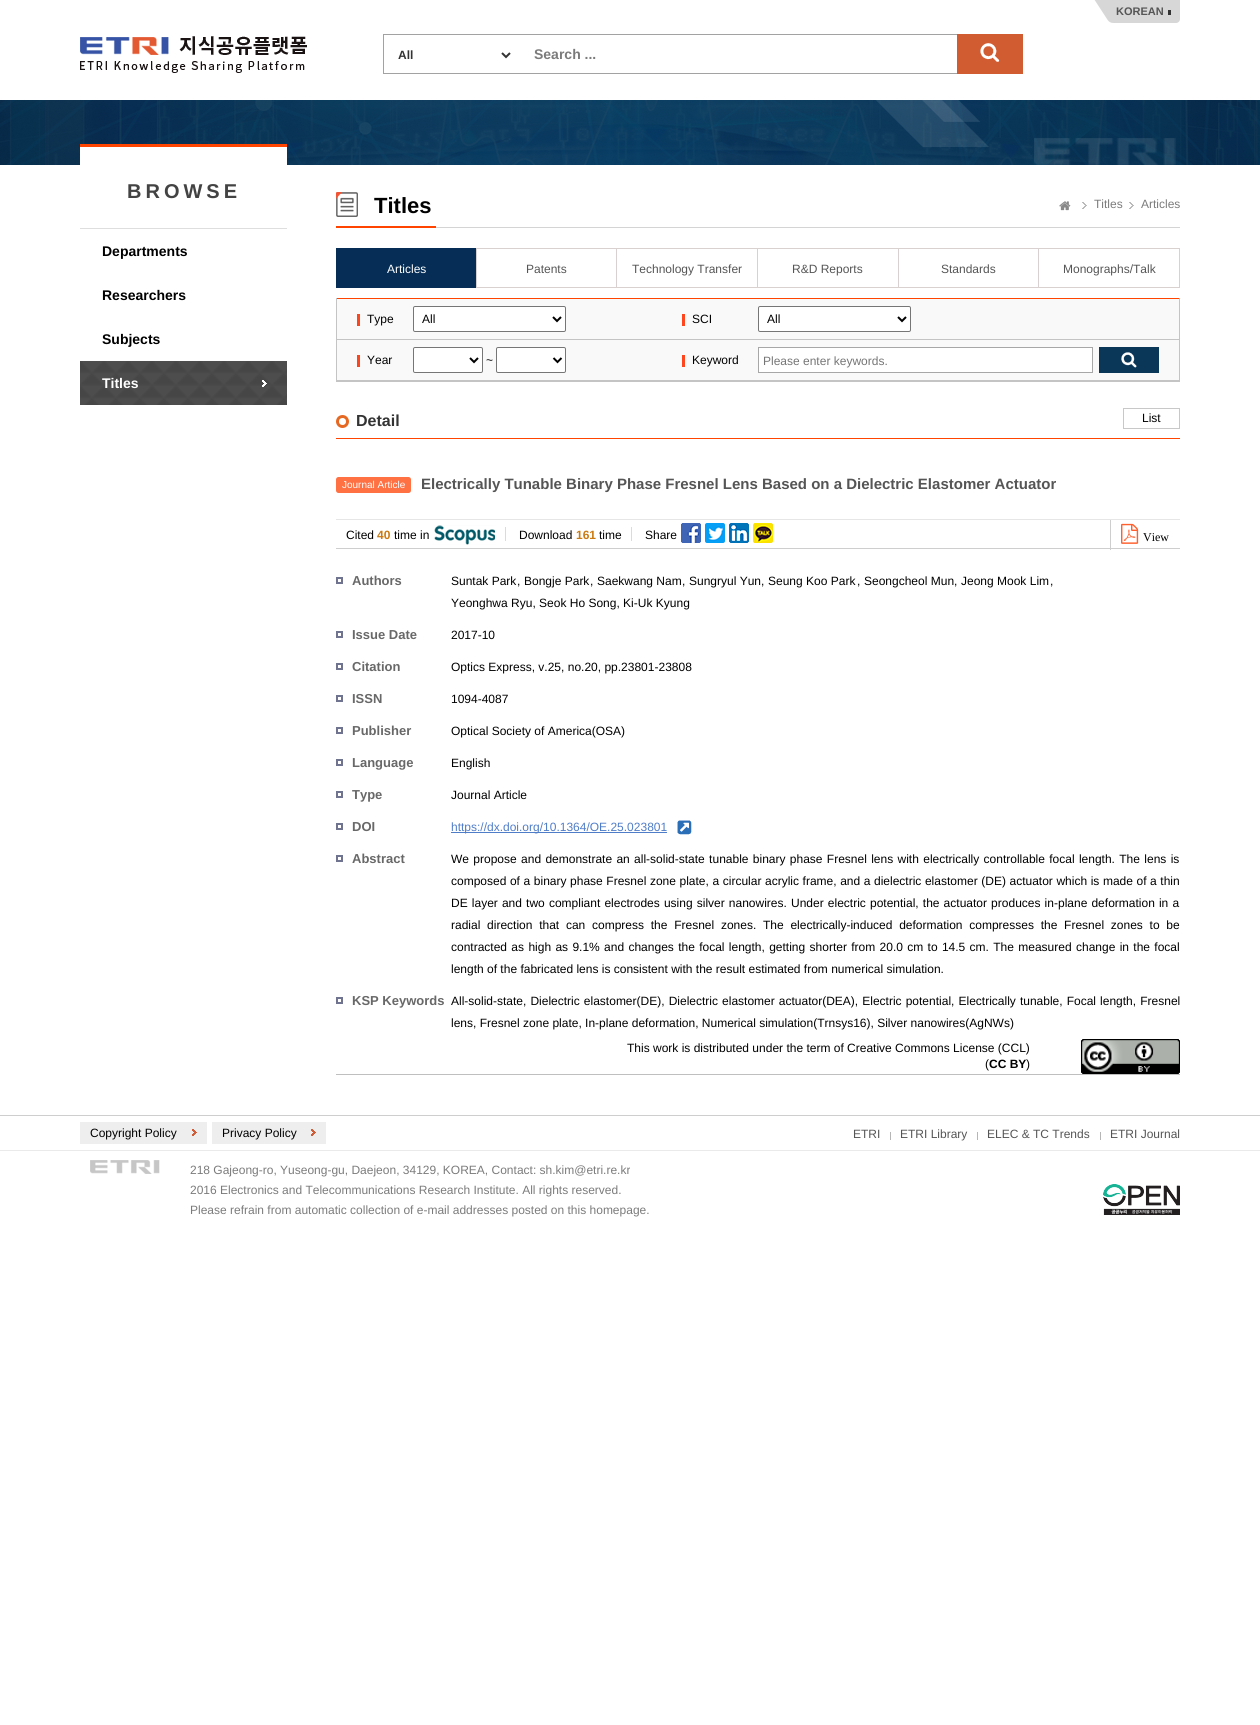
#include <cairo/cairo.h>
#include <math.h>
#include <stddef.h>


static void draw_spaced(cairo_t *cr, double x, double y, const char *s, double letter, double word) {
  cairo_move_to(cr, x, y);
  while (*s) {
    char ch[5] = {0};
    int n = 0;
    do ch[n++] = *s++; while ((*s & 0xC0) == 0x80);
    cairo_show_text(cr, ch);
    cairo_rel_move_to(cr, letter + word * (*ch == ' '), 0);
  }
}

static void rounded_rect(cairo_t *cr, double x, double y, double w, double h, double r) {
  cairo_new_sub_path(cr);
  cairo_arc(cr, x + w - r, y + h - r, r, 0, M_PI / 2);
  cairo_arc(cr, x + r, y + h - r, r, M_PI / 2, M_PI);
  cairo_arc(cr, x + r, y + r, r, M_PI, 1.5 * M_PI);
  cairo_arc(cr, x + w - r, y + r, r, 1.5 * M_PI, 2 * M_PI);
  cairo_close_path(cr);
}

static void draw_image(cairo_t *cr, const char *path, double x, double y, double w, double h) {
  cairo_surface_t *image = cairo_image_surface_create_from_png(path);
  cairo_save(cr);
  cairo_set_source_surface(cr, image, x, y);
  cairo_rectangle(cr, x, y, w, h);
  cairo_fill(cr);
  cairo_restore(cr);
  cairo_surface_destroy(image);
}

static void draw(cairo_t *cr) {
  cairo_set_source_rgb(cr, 1, 1, 1);
  cairo_paint(cr);
  draw_image(cr, "images/1.png", 1094, 0, 86, 23);
  cairo_set_source_rgb(cr, 51 / 255.0, 51 / 255.0, 51 / 255.0);
  cairo_rectangle(cr, 1168, 10, 3, 5);
  cairo_fill(cr);
  draw_image(cr, "images/2.png", 80, 36, 227, 37);
  cairo_rectangle(cr, 383.5, 34.5, 639, 39);
  cairo_set_source_rgb(cr, 162 / 255.0, 162 / 255.0, 162 / 255.0);
  cairo_set_line_width(cr, 1);
  cairo_stroke(cr);
  cairo_new_path(cr);
  cairo_move_to(cr, 502, 53);
  cairo_line_to(cr, 506, 57);
  cairo_line_to(cr, 510, 53);
  cairo_set_source_rgb(cr, 51 / 255.0, 51 / 255.0, 51 / 255.0);
  cairo_set_line_width(cr, 2);
  cairo_stroke(cr);
  cairo_set_source_rgb(cr, 210 / 255.0, 92 / 255.0, 49 / 255.0);
  cairo_rectangle(cr, 957, 34, 66, 40);
  cairo_fill(cr);
  draw_image(cr, "images/3.png", 980, 43, 20, 19);
  draw_image(cr, "images/4.png", 0, 100, 1260, 65);
  cairo_set_source_rgb(cr, 1, 1, 1);
  cairo_rectangle(cr, 80, 147, 207, 18);
  cairo_fill(cr);
  cairo_set_source_rgb(cr, 1, 68 / 255.0, 0);
  cairo_rectangle(cr, 80, 144, 207, 3);
  cairo_fill(cr);
  cairo_set_source_rgb(cr, 222 / 255.0, 222 / 255.0, 222 / 255.0);
  cairo_rectangle(cr, 80, 228, 207, 1);
  cairo_fill(cr);
  draw_image(cr, "images/5.png", 80, 361, 207, 44);
  draw_image(cr, "images/6.png", 262, 380, 5, 7);
  cairo_set_source_rgb(cr, 212 / 255.0, 212 / 255.0, 212 / 255.0);
  cairo_rectangle(cr, 436, 227, 744, 1);
  cairo_fill(cr);
  draw_image(cr, "images/7.png", 336, 192, 22, 25);
  cairo_set_source_rgb(cr, 1, 68 / 255.0, 0);
  cairo_rectangle(cr, 336, 226, 100, 2);
  cairo_fill(cr);
  draw_image(cr, "images/8.png", 1059, 201, 12, 10);
  draw_image(cr, "images/9.png", 1082, 202, 5, 7);
  draw_image(cr, "images/9.png", 1129, 202, 5, 7);
  cairo_set_source_rgb(cr, 5 / 255.0, 45 / 255.0, 85 / 255.0);
  cairo_rectangle(cr, 336, 248, 140, 40);
  cairo_fill(cr);
  cairo_rectangle(cr, 476.5, 248.5, 140, 39);
  cairo_set_source_rgb(cr, 217 / 255.0, 208 / 255.0, 208 / 255.0);
  cairo_set_line_width(cr, 1);
  cairo_stroke(cr);
  cairo_rectangle(cr, 616.5, 248.5, 141, 39);
  cairo_stroke(cr);
  cairo_rectangle(cr, 757.5, 248.5, 141, 39);
  cairo_stroke(cr);
  cairo_rectangle(cr, 898.5, 248.5, 140, 39);
  cairo_stroke(cr);
  cairo_rectangle(cr, 1038.5, 248.5, 141, 39);
  cairo_stroke(cr);
  cairo_set_source_rgb(cr, 249 / 255.0, 249 / 255.0, 249 / 255.0);
  cairo_rectangle(cr, 337, 299, 842, 81);
  cairo_fill(cr);
  cairo_set_source_rgb(cr, 1, 68 / 255.0, 0);
  cairo_rectangle(cr, 336, 298, 844, 1);
  cairo_fill(cr);
  cairo_set_source_rgb(cr, 196 / 255.0, 196 / 255.0, 196 / 255.0);
  cairo_rectangle(cr, 1179, 298, 1, 84);
  cairo_fill(cr);
  cairo_rectangle(cr, 336, 381, 844, 1);
  cairo_fill(cr);
  cairo_rectangle(cr, 336, 298, 1, 84);
  cairo_fill(cr);
  cairo_set_source_rgb(cr, 253 / 255.0, 70 / 255.0, 30 / 255.0);
  cairo_rectangle(cr, 357, 314, 3, 12);
  cairo_fill(cr);
  cairo_set_source_rgb(cr, 1, 1, 1);
  rounded_rect(cr, 413.5, 306.5, 152, 25, 1.5);
  cairo_fill_preserve(cr);
  cairo_set_source_rgb(cr, 118 / 255.0, 118 / 255.0, 118 / 255.0);
  cairo_stroke(cr);
  cairo_new_path(cr);
  cairo_move_to(cr, 553, 317);
  cairo_line_to(cr, 557, 321);
  cairo_line_to(cr, 561, 317);
  cairo_set_source_rgb(cr, 0, 0, 0);
  cairo_set_line_width(cr, 2);
  cairo_stroke(cr);
  cairo_set_source_rgb(cr, 253 / 255.0, 70 / 255.0, 30 / 255.0);
  cairo_rectangle(cr, 682, 314, 3, 12);
  cairo_fill(cr);
  cairo_set_source_rgb(cr, 196 / 255.0, 196 / 255.0, 196 / 255.0);
  cairo_rectangle(cr, 337, 339, 843, 1);
  cairo_fill(cr);
  cairo_set_source_rgb(cr, 1, 1, 1);
  rounded_rect(cr, 758.5, 306.5, 152, 25, 1.5);
  cairo_fill_preserve(cr);
  cairo_set_source_rgb(cr, 118 / 255.0, 118 / 255.0, 118 / 255.0);
  cairo_set_line_width(cr, 1);
  cairo_stroke(cr);
  cairo_new_path(cr);
  cairo_move_to(cr, 898, 317);
  cairo_line_to(cr, 902, 321);
  cairo_line_to(cr, 906, 317);
  cairo_set_source_rgb(cr, 0, 0, 0);
  cairo_set_line_width(cr, 2);
  cairo_stroke(cr);
  cairo_set_source_rgb(cr, 253 / 255.0, 70 / 255.0, 30 / 255.0);
  cairo_rectangle(cr, 357, 355, 3, 12);
  cairo_fill(cr);
  cairo_set_source_rgb(cr, 1, 1, 1);
  rounded_rect(cr, 413.5, 347.5, 69, 25, 1.5);
  cairo_fill_preserve(cr);
  cairo_set_source_rgb(cr, 118 / 255.0, 118 / 255.0, 118 / 255.0);
  cairo_set_line_width(cr, 1);
  cairo_stroke(cr);
  cairo_new_path(cr);
  cairo_move_to(cr, 470, 358);
  cairo_line_to(cr, 474, 362);
  cairo_line_to(cr, 478, 358);
  cairo_set_source_rgb(cr, 0, 0, 0);
  cairo_set_line_width(cr, 2);
  cairo_stroke(cr);
  cairo_set_source_rgb(cr, 1, 1, 1);
  rounded_rect(cr, 496.5, 347.5, 69, 25, 1.5);
  cairo_fill_preserve(cr);
  cairo_set_source_rgb(cr, 118 / 255.0, 118 / 255.0, 118 / 255.0);
  cairo_set_line_width(cr, 1);
  cairo_stroke(cr);
  cairo_new_path(cr);
  cairo_move_to(cr, 553.5, 358);
  cairo_line_to(cr, 557.5, 362);
  cairo_line_to(cr, 561.5, 358);
  cairo_set_source_rgb(cr, 0, 0, 0);
  cairo_set_line_width(cr, 2);
  cairo_stroke(cr);
  cairo_set_source_rgb(cr, 253 / 255.0, 70 / 255.0, 30 / 255.0);
  cairo_rectangle(cr, 682, 355, 3, 12);
  cairo_fill(cr);
  cairo_set_source_rgb(cr, 196 / 255.0, 196 / 255.0, 196 / 255.0);
  cairo_rectangle(cr, 337, 380, 843, 1);
  cairo_fill(cr);
  cairo_set_source_rgb(cr, 1, 1, 1);
  cairo_rectangle(cr, 758.5, 347.5, 334, 25);
  cairo_fill_preserve(cr);
  cairo_set_source_rgb(cr, 167 / 255.0, 167 / 255.0, 167 / 255.0);
  cairo_set_line_width(cr, 1);
  cairo_stroke(cr);
  cairo_set_source_rgb(cr, 10 / 255.0, 55 / 255.0, 88 / 255.0);
  cairo_rectangle(cr, 1099, 347, 60, 26);
  cairo_fill(cr);
  draw_image(cr, "images/10.png", 1121, 352, 16, 16);
  cairo_set_source_rgb(cr, 1, 68 / 255.0, 0);
  cairo_rectangle(cr, 336, 438, 844, 1);
  cairo_fill(cr);
  draw_image(cr, "images/11.png", 336, 415, 13, 13);
  cairo_rectangle(cr, 1123.5, 408.5, 56, 20);
  cairo_set_source_rgb(cr, 200 / 255.0, 200 / 255.0, 200 / 255.0);
  cairo_stroke(cr);
  cairo_set_source_rgb(cr, 1, 112 / 255.0, 67 / 255.0);
  rounded_rect(cr, 336, 477, 75, 16, 2.5);
  cairo_fill(cr);
  cairo_set_source_rgb(cr, 230 / 255.0, 230 / 255.0, 230 / 255.0);
  cairo_rectangle(cr, 336, 519, 844, 1);
  cairo_fill(cr);
  cairo_set_source_rgb(cr, 206 / 255.0, 206 / 255.0, 206 / 255.0);
  cairo_rectangle(cr, 336, 548, 844, 1);
  cairo_fill(cr);
  cairo_set_source_rgb(cr, 219 / 255.0, 219 / 255.0, 219 / 255.0);
  cairo_rectangle(cr, 505, 527, 1, 14);
  cairo_fill(cr);
  draw_image(cr, "images/12.png", 434, 525, 61, 20);
  cairo_rectangle(cr, 631, 527, 1, 14);
  cairo_fill(cr);
  draw_image(cr, "images/13.png", 681, 523, 92, 20);
  cairo_set_source_rgb(cr, 206 / 255.0, 206 / 255.0, 206 / 255.0);
  cairo_rectangle(cr, 1110, 520, 1, 30);
  cairo_fill(cr);
  draw_image(cr, "images/14.png", 1121, 523, 18, 21);
  draw_image(cr, "images/15.png", 336, 577, 7, 7);
  draw_image(cr, "images/15.png", 336, 631, 7, 7);
  draw_image(cr, "images/15.png", 336, 663, 7, 7);
  draw_image(cr, "images/15.png", 336, 695, 7, 7);
  draw_image(cr, "images/15.png", 336, 727, 7, 7);
  draw_image(cr, "images/15.png", 336, 759, 7, 7);
  draw_image(cr, "images/15.png", 336, 791, 7, 7);
  draw_image(cr, "images/15.png", 336, 823, 7, 7);
  cairo_set_source_rgb(cr, 80 / 255.0, 125 / 255.0, 200 / 255.0);
  cairo_rectangle(cr, 451, 832, 216, 1);
  cairo_fill(cr);
  draw_image(cr, "images/16.png", 677, 820, 15, 15);
  draw_image(cr, "images/15.png", 336, 855, 7, 7);
  draw_image(cr, "images/15.png", 336, 997, 7, 7);
  cairo_set_source_rgb(cr, 191 / 255.0, 191 / 255.0, 191 / 255.0);
  cairo_rectangle(cr, 336, 1074, 844, 1);
  cairo_fill(cr);
  draw_image(cr, "images/17.png", 1081, 1039, 99, 35);
  cairo_set_source_rgb(cr, 234 / 255.0, 234 / 255.0, 234 / 255.0);
  cairo_rectangle(cr, 0, 1150, 1260, 1);
  cairo_fill(cr);
  cairo_set_source_rgb(cr, 206 / 255.0, 206 / 255.0, 206 / 255.0);
  cairo_rectangle(cr, 0, 1115, 1260, 1);
  cairo_fill(cr);
  cairo_set_source_rgb(cr, 238 / 255.0, 238 / 255.0, 238 / 255.0);
  cairo_rectangle(cr, 80, 1122, 127, 22);
  cairo_fill(cr);
  draw_image(cr, "images/18.png", 192, 1129, 5, 7);
  cairo_rectangle(cr, 212, 1122, 114, 22);
  cairo_fill(cr);
  draw_image(cr, "images/18.png", 311, 1129, 5, 7);
  cairo_set_source_rgb(cr, 182 / 255.0, 182 / 255.0, 182 / 255.0);
  cairo_rectangle(cr, 890, 1132, 1, 8);
  cairo_fill(cr);
  cairo_rectangle(cr, 977, 1132, 1, 8);
  cairo_fill(cr);
  cairo_rectangle(cr, 1100, 1132, 1, 8);
  cairo_fill(cr);
  draw_image(cr, "images/19.png", 90, 1160, 70, 14);
  draw_image(cr, "images/20.png", 1103, 1184, 77, 31);
  cairo_select_font_face(cr, "Liberation Sans", CAIRO_FONT_SLANT_NORMAL, CAIRO_FONT_WEIGHT_BOLD);
  cairo_set_font_size(cr, 11);
  cairo_set_source_rgb(cr, 85 / 255.0, 85 / 255.0, 85 / 255.0);
  cairo_move_to(cr, 1116, 15);
  cairo_show_text(cr, "KOREAN");
  cairo_set_font_size(cr, 12);
  cairo_set_source_rgb(cr, 51 / 255.0, 51 / 255.0, 51 / 255.0);
  cairo_move_to(cr, 398, 59);
  cairo_show_text(cr, "All");
  cairo_set_font_size(cr, 14);
  cairo_set_source_rgb(cr, 123 / 255.0, 123 / 255.0, 123 / 255.0);
  cairo_move_to(cr, 534, 59);
  cairo_show_text(cr, "Search ...");
  cairo_set_font_size(cr, 20);
  cairo_set_source_rgb(cr, 67 / 255.0, 67 / 255.0, 67 / 255.0);
  draw_spaced(cr, 127, 198, "BROWSE", 4, 0);
  cairo_set_font_size(cr, 14);
  cairo_set_source_rgb(cr, 0, 0, 0);
  cairo_move_to(cr, 102, 256);
  cairo_show_text(cr, "Departments");
  cairo_move_to(cr, 102, 300);
  cairo_show_text(cr, "Researchers");
  cairo_move_to(cr, 102, 344);
  cairo_show_text(cr, "Subjects");
  cairo_set_source_rgb(cr, 1, 1, 1);
  cairo_move_to(cr, 102, 388);
  cairo_show_text(cr, "Titles");
  cairo_set_font_size(cr, 22);
  cairo_set_source_rgb(cr, 0, 0, 0);
  cairo_move_to(cr, 374, 213);
  cairo_show_text(cr, "Titles");
  cairo_select_font_face(cr, "Liberation Sans", CAIRO_FONT_SLANT_NORMAL, CAIRO_FONT_WEIGHT_NORMAL);
  cairo_set_font_size(cr, 12);
  cairo_set_source_rgb(cr, 123 / 255.0, 123 / 255.0, 123 / 255.0);
  cairo_move_to(cr, 1094, 208);
  cairo_show_text(cr, "Titles");
  cairo_move_to(cr, 1141, 208);
  cairo_show_text(cr, "Articles");
  cairo_set_source_rgb(cr, 1, 1, 1);
  cairo_move_to(cr, 387, 273);
  cairo_show_text(cr, "Articles");
  cairo_set_source_rgb(cr, 85 / 255.0, 85 / 255.0, 85 / 255.0);
  cairo_move_to(cr, 526, 273);
  cairo_show_text(cr, "Patents");
  cairo_move_to(cr, 632, 273);
  cairo_show_text(cr, "Technology Transfer");
  cairo_move_to(cr, 792, 273);
  cairo_show_text(cr, "R&D Reports");
  cairo_move_to(cr, 941, 273);
  cairo_show_text(cr, "Standards");
  cairo_move_to(cr, 1063, 273);
  cairo_show_text(cr, "Monographs/Talk");
  cairo_set_source_rgb(cr, 0, 0, 0);
  cairo_move_to(cr, 367, 323);
  cairo_show_text(cr, "Type");
  cairo_move_to(cr, 422, 323);
  cairo_show_text(cr, "All");
  cairo_move_to(cr, 692, 323);
  cairo_show_text(cr, "SCI");
  cairo_move_to(cr, 767, 323);
  cairo_show_text(cr, "All");
  cairo_move_to(cr, 367, 364);
  cairo_show_text(cr, "Year");
  cairo_move_to(cr, 486, 364);
  cairo_show_text(cr, "~");
  cairo_move_to(cr, 692, 364);
  cairo_show_text(cr, "Keyword");
  cairo_set_source_rgb(cr, 117 / 255.0, 117 / 255.0, 117 / 255.0);
  cairo_move_to(cr, 763, 365);
  cairo_show_text(cr, "Please enter keywords.");
  cairo_select_font_face(cr, "Liberation Sans", CAIRO_FONT_SLANT_NORMAL, CAIRO_FONT_WEIGHT_BOLD);
  cairo_set_font_size(cr, 16);
  cairo_set_source_rgb(cr, 51 / 255.0, 51 / 255.0, 51 / 255.0);
  cairo_move_to(cr, 356, 426);
  cairo_show_text(cr, "Detail");
  cairo_select_font_face(cr, "Liberation Sans", CAIRO_FONT_SLANT_NORMAL, CAIRO_FONT_WEIGHT_NORMAL);
  cairo_set_font_size(cr, 12);
  cairo_set_source_rgb(cr, 0, 0, 0);
  cairo_move_to(cr, 1142, 422);
  cairo_show_text(cr, "List");
  cairo_set_font_size(cr, 10);
  cairo_set_source_rgb(cr, 1, 1, 1);
  cairo_move_to(cr, 342, 488);
  cairo_show_text(cr, "Journal Article");
  cairo_select_font_face(cr, "Liberation Sans", CAIRO_FONT_SLANT_NORMAL, CAIRO_FONT_WEIGHT_BOLD);
  cairo_set_font_size(cr, 15);
  cairo_set_source_rgb(cr, 85 / 255.0, 85 / 255.0, 85 / 255.0);
  cairo_move_to(cr, 421, 489);
  cairo_show_text(cr, "Electrically Tunable Binary Phase Fresnel Lens Based on a Dielectric Elastomer Actuator");
  cairo_select_font_face(cr, "Liberation Sans", CAIRO_FONT_SLANT_NORMAL, CAIRO_FONT_WEIGHT_NORMAL);
  cairo_set_font_size(cr, 12);
  cairo_set_source_rgb(cr, 0, 0, 0);
  cairo_move_to(cr, 346, 539);
  cairo_show_text(cr, "Cited");
  cairo_select_font_face(cr, "Liberation Sans", CAIRO_FONT_SLANT_NORMAL, CAIRO_FONT_WEIGHT_BOLD);
  cairo_set_source_rgb(cr, 203 / 255.0, 122 / 255.0, 17 / 255.0);
  cairo_move_to(cr, 377, 539);
  cairo_show_text(cr, "40");
  cairo_select_font_face(cr, "Liberation Sans", CAIRO_FONT_SLANT_NORMAL, CAIRO_FONT_WEIGHT_NORMAL);
  cairo_set_source_rgb(cr, 0, 0, 0);
  cairo_move_to(cr, 394, 539);
  cairo_show_text(cr, "time in");
  cairo_move_to(cr, 519, 539);
  cairo_show_text(cr, "Download");
  cairo_select_font_face(cr, "Liberation Sans", CAIRO_FONT_SLANT_NORMAL, CAIRO_FONT_WEIGHT_BOLD);
  cairo_set_source_rgb(cr, 203 / 255.0, 122 / 255.0, 17 / 255.0);
  cairo_move_to(cr, 576, 539);
  cairo_show_text(cr, "161");
  cairo_select_font_face(cr, "Liberation Sans", CAIRO_FONT_SLANT_NORMAL, CAIRO_FONT_WEIGHT_NORMAL);
  cairo_set_source_rgb(cr, 0, 0, 0);
  cairo_move_to(cr, 599, 539);
  cairo_show_text(cr, "time");
  cairo_move_to(cr, 645, 539);
  cairo_show_text(cr, "Share");
  cairo_select_font_face(cr, "Liberation Serif", CAIRO_FONT_SLANT_NORMAL, CAIRO_FONT_WEIGHT_NORMAL);
  cairo_move_to(cr, 1143, 541);
  cairo_show_text(cr, "View");
  cairo_select_font_face(cr, "Liberation Sans", CAIRO_FONT_SLANT_NORMAL, CAIRO_FONT_WEIGHT_BOLD);
  cairo_set_font_size(cr, 13);
  cairo_set_source_rgb(cr, 104 / 255.0, 104 / 255.0, 104 / 255.0);
  cairo_move_to(cr, 352, 585);
  cairo_show_text(cr, "Authors");
  cairo_select_font_face(cr, "Liberation Sans", CAIRO_FONT_SLANT_NORMAL, CAIRO_FONT_WEIGHT_NORMAL);
  cairo_set_font_size(cr, 12);
  cairo_set_source_rgb(cr, 0, 0, 0);
  cairo_move_to(cr, 451, 585);
  cairo_show_text(cr, "Suntak Park");
  cairo_move_to(cr, 517, 585);
  cairo_show_text(cr, ",");
  cairo_move_to(cr, 524, 585);
  cairo_show_text(cr, "Bongje Park");
  cairo_move_to(cr, 590, 585);
  cairo_show_text(cr, ",");
  cairo_move_to(cr, 597, 585);
  cairo_show_text(cr, "Saekwang Nam");
  cairo_move_to(cr, 682, 585);
  cairo_show_text(cr, ",");
  cairo_move_to(cr, 689, 585);
  cairo_show_text(cr, "Sungryul Yun");
  cairo_move_to(cr, 761, 585);
  cairo_show_text(cr, ",");
  cairo_move_to(cr, 768, 585);
  cairo_show_text(cr, "Seung Koo Park");
  cairo_move_to(cr, 857, 585);
  cairo_show_text(cr, ",");
  cairo_move_to(cr, 864, 585);
  cairo_show_text(cr, "Seongcheol Mun");
  cairo_move_to(cr, 954, 585);
  cairo_show_text(cr, ",");
  cairo_move_to(cr, 961, 585);
  cairo_show_text(cr, "Jeong Mook Lim");
  cairo_move_to(cr, 1050, 585);
  cairo_show_text(cr, ",");
  cairo_move_to(cr, 451, 607);
  cairo_show_text(cr, "Yeonghwa Ryu, Seok Ho Song, Ki-Uk Kyung");
  cairo_select_font_face(cr, "Liberation Sans", CAIRO_FONT_SLANT_NORMAL, CAIRO_FONT_WEIGHT_BOLD);
  cairo_set_font_size(cr, 13);
  cairo_set_source_rgb(cr, 104 / 255.0, 104 / 255.0, 104 / 255.0);
  cairo_move_to(cr, 352, 639);
  cairo_show_text(cr, "Issue Date");
  cairo_select_font_face(cr, "Liberation Sans", CAIRO_FONT_SLANT_NORMAL, CAIRO_FONT_WEIGHT_NORMAL);
  cairo_set_font_size(cr, 12);
  cairo_set_source_rgb(cr, 0, 0, 0);
  cairo_move_to(cr, 451, 639);
  cairo_show_text(cr, "2017-10");
  cairo_select_font_face(cr, "Liberation Sans", CAIRO_FONT_SLANT_NORMAL, CAIRO_FONT_WEIGHT_BOLD);
  cairo_set_font_size(cr, 13);
  cairo_set_source_rgb(cr, 104 / 255.0, 104 / 255.0, 104 / 255.0);
  cairo_move_to(cr, 352, 671);
  cairo_show_text(cr, "Citation");
  cairo_select_font_face(cr, "Liberation Sans", CAIRO_FONT_SLANT_NORMAL, CAIRO_FONT_WEIGHT_NORMAL);
  cairo_set_font_size(cr, 12);
  cairo_set_source_rgb(cr, 0, 0, 0);
  cairo_move_to(cr, 451, 671);
  cairo_show_text(cr, "Optics Express, v.25, no.20, pp.23801-23808");
  cairo_select_font_face(cr, "Liberation Sans", CAIRO_FONT_SLANT_NORMAL, CAIRO_FONT_WEIGHT_BOLD);
  cairo_set_font_size(cr, 13);
  cairo_set_source_rgb(cr, 104 / 255.0, 104 / 255.0, 104 / 255.0);
  cairo_move_to(cr, 352, 703);
  cairo_show_text(cr, "ISSN");
  cairo_select_font_face(cr, "Liberation Sans", CAIRO_FONT_SLANT_NORMAL, CAIRO_FONT_WEIGHT_NORMAL);
  cairo_set_font_size(cr, 12);
  cairo_set_source_rgb(cr, 0, 0, 0);
  cairo_move_to(cr, 451, 703);
  cairo_show_text(cr, "1094-4087");
  cairo_select_font_face(cr, "Liberation Sans", CAIRO_FONT_SLANT_NORMAL, CAIRO_FONT_WEIGHT_BOLD);
  cairo_set_font_size(cr, 13);
  cairo_set_source_rgb(cr, 104 / 255.0, 104 / 255.0, 104 / 255.0);
  cairo_move_to(cr, 352, 735);
  cairo_show_text(cr, "Publisher");
  cairo_select_font_face(cr, "Liberation Sans", CAIRO_FONT_SLANT_NORMAL, CAIRO_FONT_WEIGHT_NORMAL);
  cairo_set_font_size(cr, 12);
  cairo_set_source_rgb(cr, 0, 0, 0);
  cairo_move_to(cr, 451, 735);
  cairo_show_text(cr, "Optical Society of America(OSA)");
  cairo_select_font_face(cr, "Liberation Sans", CAIRO_FONT_SLANT_NORMAL, CAIRO_FONT_WEIGHT_BOLD);
  cairo_set_font_size(cr, 13);
  cairo_set_source_rgb(cr, 104 / 255.0, 104 / 255.0, 104 / 255.0);
  cairo_move_to(cr, 352, 767);
  cairo_show_text(cr, "Language");
  cairo_select_font_face(cr, "Liberation Sans", CAIRO_FONT_SLANT_NORMAL, CAIRO_FONT_WEIGHT_NORMAL);
  cairo_set_font_size(cr, 12);
  cairo_set_source_rgb(cr, 0, 0, 0);
  cairo_move_to(cr, 451, 767);
  cairo_show_text(cr, "English");
  cairo_select_font_face(cr, "Liberation Sans", CAIRO_FONT_SLANT_NORMAL, CAIRO_FONT_WEIGHT_BOLD);
  cairo_set_font_size(cr, 13);
  cairo_set_source_rgb(cr, 104 / 255.0, 104 / 255.0, 104 / 255.0);
  cairo_move_to(cr, 352, 799);
  cairo_show_text(cr, "Type");
  cairo_select_font_face(cr, "Liberation Sans", CAIRO_FONT_SLANT_NORMAL, CAIRO_FONT_WEIGHT_NORMAL);
  cairo_set_font_size(cr, 12);
  cairo_set_source_rgb(cr, 0, 0, 0);
  cairo_move_to(cr, 451, 799);
  cairo_show_text(cr, "Journal Article");
  cairo_select_font_face(cr, "Liberation Sans", CAIRO_FONT_SLANT_NORMAL, CAIRO_FONT_WEIGHT_BOLD);
  cairo_set_font_size(cr, 13);
  cairo_set_source_rgb(cr, 104 / 255.0, 104 / 255.0, 104 / 255.0);
  cairo_move_to(cr, 352, 831);
  cairo_show_text(cr, "DOI");
  cairo_select_font_face(cr, "Liberation Sans", CAIRO_FONT_SLANT_NORMAL, CAIRO_FONT_WEIGHT_NORMAL);
  cairo_set_font_size(cr, 12);
  cairo_set_source_rgb(cr, 80 / 255.0, 125 / 255.0, 200 / 255.0);
  cairo_move_to(cr, 451, 831);
  cairo_show_text(cr, "https://dx.doi.org/10.1364/OE.25.023801");
  cairo_select_font_face(cr, "Liberation Sans", CAIRO_FONT_SLANT_NORMAL, CAIRO_FONT_WEIGHT_BOLD);
  cairo_set_font_size(cr, 13);
  cairo_set_source_rgb(cr, 104 / 255.0, 104 / 255.0, 104 / 255.0);
  cairo_move_to(cr, 352, 863);
  cairo_show_text(cr, "Abstract");
  cairo_select_font_face(cr, "Liberation Sans", CAIRO_FONT_SLANT_NORMAL, CAIRO_FONT_WEIGHT_NORMAL);
  cairo_set_font_size(cr, 12);
  cairo_set_source_rgb(cr, 0, 0, 0);
  draw_spaced(cr, 451, 863, "We propose and demonstrate an all-solid-state tunable binary phase Fresnel lens with electrically controllable focal length. The lens is", 0, 1);
  draw_spaced(cr, 451, 885, "composed of a binary phase Fresnel zone plate, a circular acrylic frame, and a dielectric elastomer (DE) actuator which is made of a thin", 0, 0.25);
  draw_spaced(cr, 451, 907, "DE layer and two compliant electrodes using silver nanowires. Under electric potential, the actuator produces in-plane deformation in a", 0, 0.8);
  draw_spaced(cr, 451, 929, "radial direction that can compress the Fresnel zones. The electrically-induced deformation compresses the Fresnel zones to be", 0, 3.4);
  draw_spaced(cr, 451, 951, "contracted as high as 9.1% and changes the focal length, getting shorter from 20.0 cm to 14.5 cm. The measured change in the focal", 0, 1);
  cairo_move_to(cr, 451, 973);
  cairo_show_text(cr, "length of the fabricated lens is consistent with the result estimated from numerical simulation.");
  cairo_select_font_face(cr, "Liberation Sans", CAIRO_FONT_SLANT_NORMAL, CAIRO_FONT_WEIGHT_BOLD);
  cairo_set_font_size(cr, 13);
  cairo_set_source_rgb(cr, 104 / 255.0, 104 / 255.0, 104 / 255.0);
  cairo_move_to(cr, 352, 1005);
  cairo_show_text(cr, "KSP Keywords");
  cairo_select_font_face(cr, "Liberation Sans", CAIRO_FONT_SLANT_NORMAL, CAIRO_FONT_WEIGHT_NORMAL);
  cairo_set_font_size(cr, 12);
  cairo_set_source_rgb(cr, 0, 0, 0);
  draw_spaced(cr, 451, 1005, "All-solid-state, Dielectric elastomer(DE), Dielectric elastomer actuator(DEA), Electric potential, Electrically tunable, Focal length, Fresnel", 0, 0.75);
  cairo_move_to(cr, 451, 1027);
  cairo_show_text(cr, "lens, Fresnel zone plate, In-plane deformation, Numerical simulation(Trnsys16), Silver nanowires(AgNWs)");
  cairo_move_to(cr, 627, 1052);
  cairo_show_text(cr, "This work is distributed under the term of Creative Commons License (CCL)");
  cairo_move_to(cr, 985, 1068);
  cairo_show_text(cr, "(");
  cairo_select_font_face(cr, "Liberation Sans", CAIRO_FONT_SLANT_NORMAL, CAIRO_FONT_WEIGHT_BOLD);
  cairo_move_to(cr, 989, 1068);
  cairo_show_text(cr, "CC BY");
  cairo_select_font_face(cr, "Liberation Sans", CAIRO_FONT_SLANT_NORMAL, CAIRO_FONT_WEIGHT_NORMAL);
  cairo_move_to(cr, 1026, 1068);
  cairo_show_text(cr, ")");
  cairo_move_to(cr, 90, 1137);
  cairo_show_text(cr, "Copyright Policy");
  cairo_move_to(cr, 222, 1137);
  cairo_show_text(cr, "Privacy Policy");
  cairo_set_source_rgb(cr, 85 / 255.0, 85 / 255.0, 85 / 255.0);
  cairo_move_to(cr, 853, 1138);
  cairo_show_text(cr, "ETRI");
  cairo_move_to(cr, 900, 1138);
  cairo_show_text(cr, "ETRI Library");
  cairo_move_to(cr, 987, 1138);
  cairo_show_text(cr, "ELEC & TC Trends");
  cairo_move_to(cr, 1110, 1138);
  cairo_show_text(cr, "ETRI Journal");
  cairo_set_source_rgb(cr, 123 / 255.0, 123 / 255.0, 123 / 255.0);
  cairo_move_to(cr, 190, 1174);
  cairo_show_text(cr, "218 Gajeong-ro, Yuseong-gu, Daejeon, 34129, KOREA, Contact: sh.kim@etri.re.kr");
  cairo_move_to(cr, 190, 1194);
  cairo_show_text(cr, "2016 Electronics and Telecommunications Research Institute. All rights reserved.");
  cairo_move_to(cr, 190, 1214);
  cairo_show_text(cr, "Please refrain from automatic collection of e-mail addresses posted on this homepage.");
}

int main(void) {
  cairo_surface_t *surface = cairo_image_surface_create(CAIRO_FORMAT_RGB24, 1260, 1725);
  cairo_t *cr = cairo_create(surface);
  cairo_font_options_t *options = cairo_font_options_create();
  cairo_font_options_set_hint_metrics(options, CAIRO_HINT_METRICS_OFF);
  cairo_font_options_set_hint_style(options, CAIRO_HINT_STYLE_NONE);
  cairo_set_font_options(cr, options);
  cairo_set_miter_limit(cr, 4);
  draw(cr);
  cairo_surface_write_to_png(surface, "out.png");
  cairo_font_options_destroy(options);
  cairo_destroy(cr);
  cairo_surface_destroy(surface);
  return 0;
}
